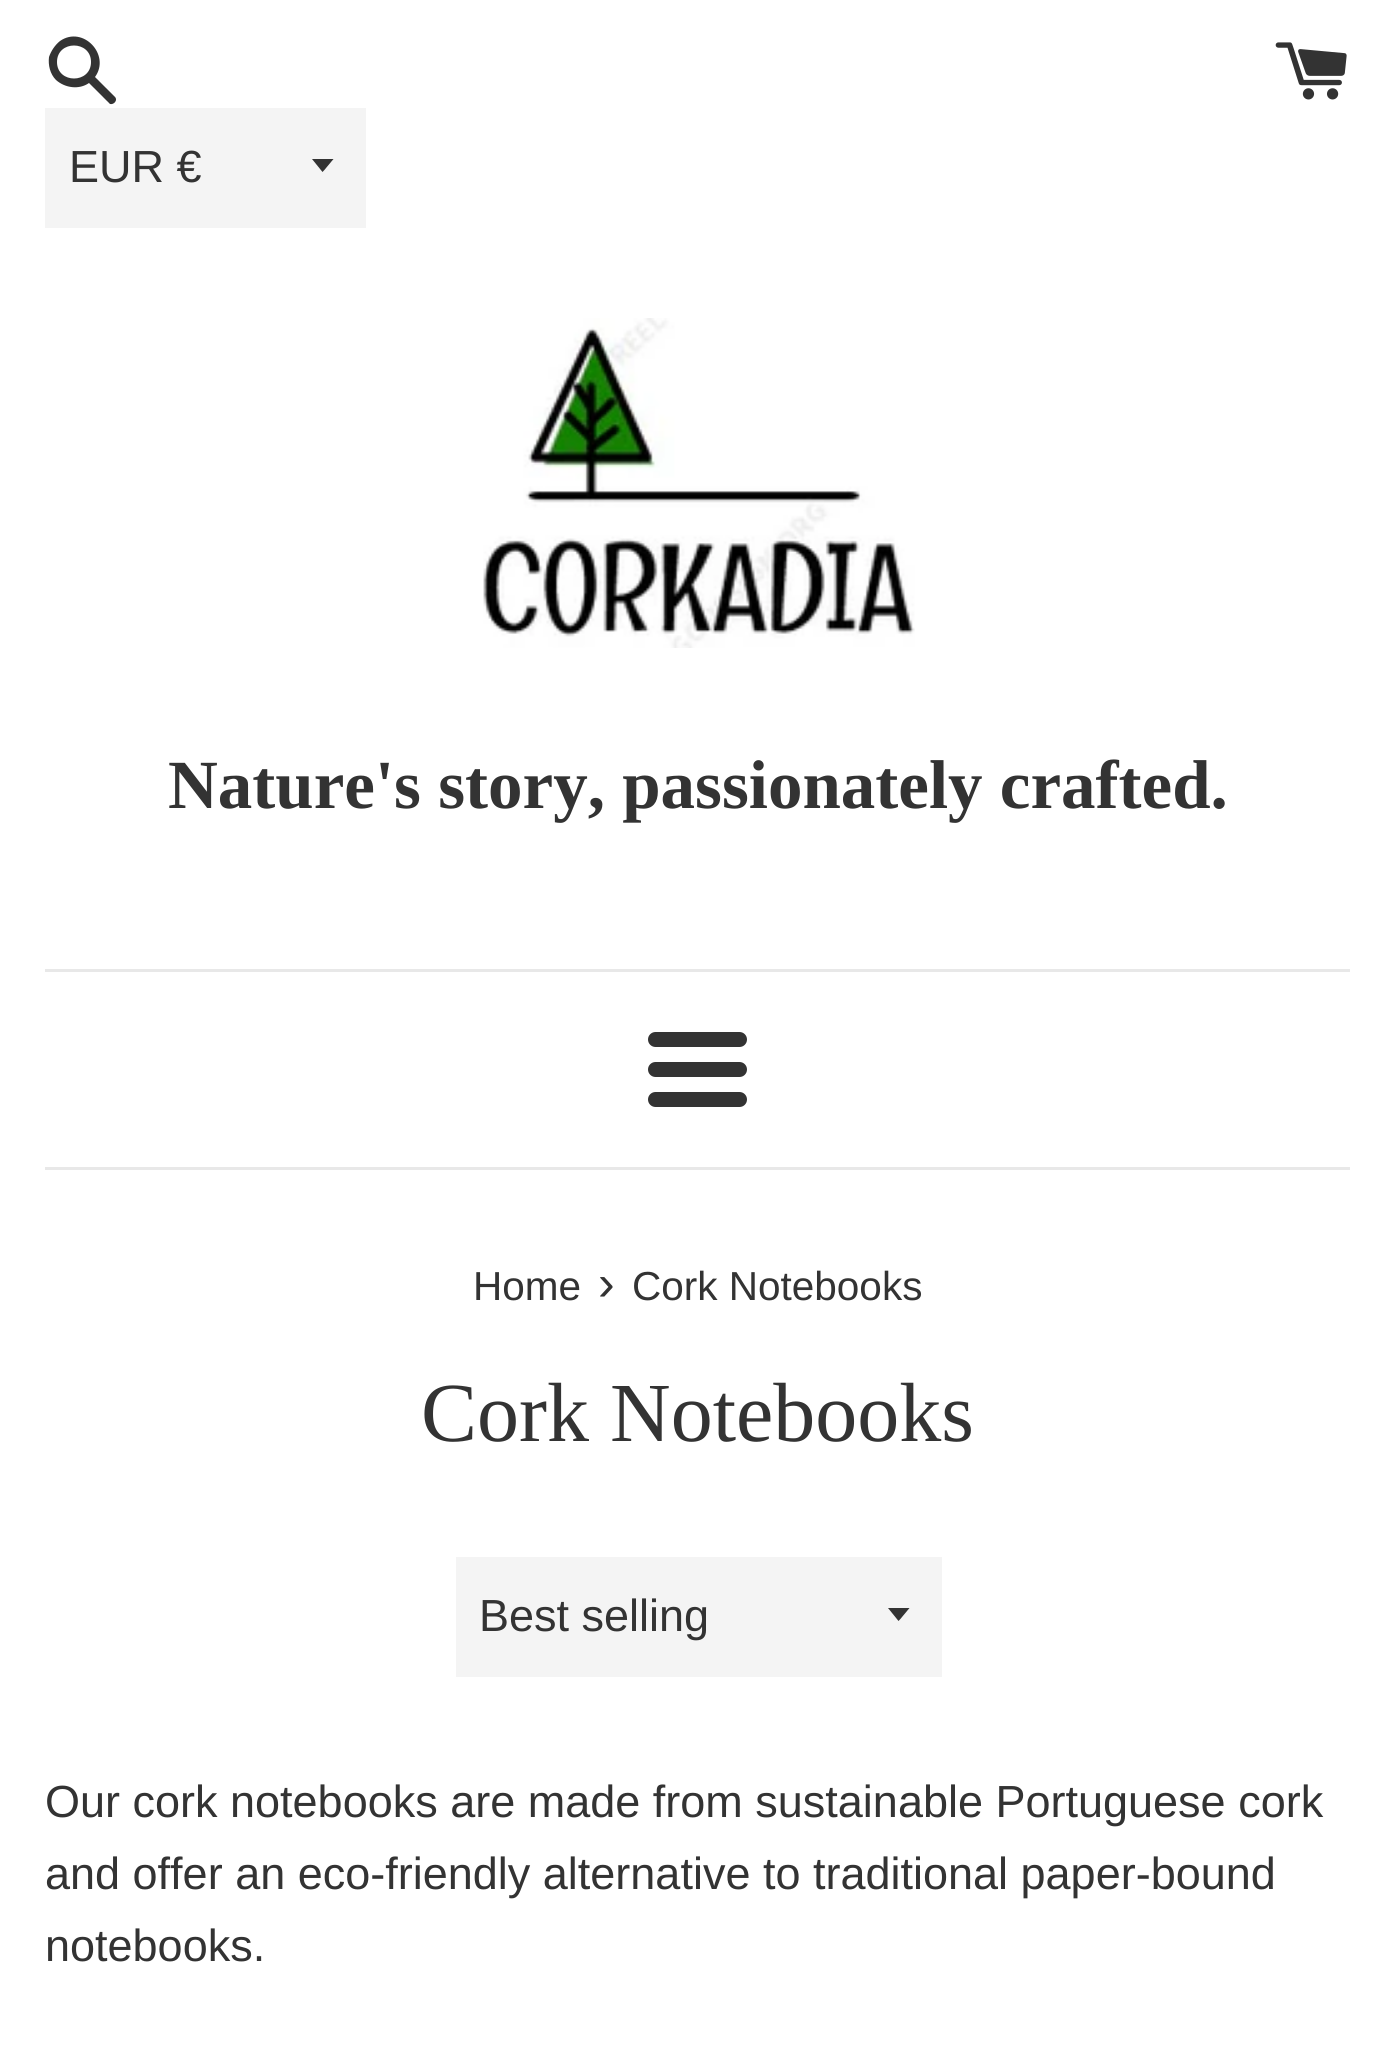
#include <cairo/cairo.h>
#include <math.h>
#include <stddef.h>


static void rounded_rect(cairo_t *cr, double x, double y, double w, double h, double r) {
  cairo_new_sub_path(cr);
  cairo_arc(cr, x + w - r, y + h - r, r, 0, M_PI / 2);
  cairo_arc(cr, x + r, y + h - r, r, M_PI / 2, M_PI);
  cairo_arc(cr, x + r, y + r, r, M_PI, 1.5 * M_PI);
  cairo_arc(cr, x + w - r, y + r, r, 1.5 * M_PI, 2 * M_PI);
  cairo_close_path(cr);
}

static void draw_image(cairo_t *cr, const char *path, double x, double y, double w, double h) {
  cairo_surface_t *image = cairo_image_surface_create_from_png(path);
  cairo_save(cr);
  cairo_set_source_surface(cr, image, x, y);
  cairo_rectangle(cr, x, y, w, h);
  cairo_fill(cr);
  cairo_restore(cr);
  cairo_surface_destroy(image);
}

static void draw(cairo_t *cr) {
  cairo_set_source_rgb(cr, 1, 1, 1);
  cairo_paint(cr);
  cairo_set_source_rgb(cr, 51 / 255.0, 51 / 255.0, 51 / 255.0);
  cairo_new_path(cr);
  cairo_move_to(cr, 115, 97);
  cairo_line_to(cr, 95, 77);
  cairo_curve_to(cr, 111, 55, 83, 25, 60, 41);
  cairo_curve_to(cr, 55, 45, 51, 51, 49, 57);
  cairo_curve_to(cr, 48, 65, 50, 74, 56, 80);
  cairo_curve_to(cr, 65, 88, 79, 90, 89, 83);
  cairo_line_to(cr, 110, 104);
  cairo_curve_to(cr, 114, 105, 118, 100, 115, 97);
  cairo_close_path(cr);
  cairo_move_to(cr, 57, 62);
  cairo_curve_to(cr, 57, 40, 91, 40, 91, 62);
  cairo_curve_to(cr, 91, 84, 57, 84, 57, 62);
  cairo_close_path(cr);
  cairo_fill(cr);
  draw_image(cr, "images/1.png", 1275, 42, 72, 58);
  cairo_set_source_rgb(cr, 244 / 255.0, 244 / 255.0, 244 / 255.0);
  cairo_rectangle(cr, 45, 108, 321, 120);
  cairo_fill(cr);
  cairo_set_source_rgb(cr, 51 / 255.0, 51 / 255.0, 51 / 255.0);
  cairo_new_path(cr);
  cairo_move_to(cr, 312, 159);
  cairo_line_to(cr, 322.5, 172);
  cairo_curve_to(cr, 323, 172, 332, 160.5, 333.5, 159);
  cairo_close_path(cr);
  cairo_fill(cr);
  draw_image(cr, "images/2.png", 483, 318, 432, 330);
  cairo_set_source_rgb(cr, 232 / 255.0, 232 / 255.0, 232 / 255.0);
  cairo_rectangle(cr, 45, 969, 1305, 3);
  cairo_fill(cr);
  cairo_set_source_rgb(cr, 51 / 255.0, 51 / 255.0, 51 / 255.0);
  rounded_rect(cr, 648, 1032, 99, 15, 7.5);
  cairo_fill(cr);
  rounded_rect(cr, 648, 1062, 99, 15, 7.5);
  cairo_fill(cr);
  rounded_rect(cr, 648, 1092, 99, 15, 7.5);
  cairo_fill(cr);
  cairo_set_source_rgb(cr, 232 / 255.0, 232 / 255.0, 232 / 255.0);
  cairo_rectangle(cr, 45, 1167, 1305, 3);
  cairo_fill(cr);
  cairo_set_source_rgb(cr, 244 / 255.0, 244 / 255.0, 244 / 255.0);
  cairo_rectangle(cr, 456, 1557, 486, 120);
  cairo_fill(cr);
  cairo_set_source_rgb(cr, 51 / 255.0, 51 / 255.0, 51 / 255.0);
  cairo_new_path(cr);
  cairo_move_to(cr, 888, 1608);
  cairo_line_to(cr, 898.5, 1621);
  cairo_curve_to(cr, 899, 1621, 908, 1609.5, 909.5, 1608);
  cairo_close_path(cr);
  cairo_fill(cr);
  cairo_select_font_face(cr, "Liberation Sans", CAIRO_FONT_SLANT_NORMAL, CAIRO_FONT_WEIGHT_NORMAL);
  cairo_set_font_size(cr, 45);
  cairo_move_to(cr, 69, 182);
  cairo_show_text(cr, "EUR €");
  cairo_select_font_face(cr, "Liberation Serif", CAIRO_FONT_SLANT_NORMAL, CAIRO_FONT_WEIGHT_BOLD);
  cairo_set_font_size(cr, 69);
  cairo_move_to(cr, 168, 808);
  cairo_show_text(cr, "Nature's story, passionately crafted.");
  cairo_select_font_face(cr, "Liberation Sans", CAIRO_FONT_SLANT_NORMAL, CAIRO_FONT_WEIGHT_NORMAL);
  cairo_set_font_size(cr, 40.5);
  cairo_move_to(cr, 473, 1300);
  cairo_show_text(cr, "Home");
  cairo_set_font_size(cr, 50);
  cairo_move_to(cr, 598, 1300);
  cairo_show_text(cr, "›");
  cairo_set_font_size(cr, 40.5);
  cairo_move_to(cr, 632, 1300);
  cairo_show_text(cr, "Cork Notebooks");
  cairo_select_font_face(cr, "Liberation Serif", CAIRO_FONT_SLANT_NORMAL, CAIRO_FONT_WEIGHT_NORMAL);
  cairo_set_font_size(cr, 84);
  cairo_move_to(cr, 421, 1441);
  cairo_show_text(cr, "Cork Notebooks");
  cairo_select_font_face(cr, "Liberation Sans", CAIRO_FONT_SLANT_NORMAL, CAIRO_FONT_WEIGHT_NORMAL);
  cairo_set_font_size(cr, 45);
  cairo_move_to(cr, 479, 1631);
  cairo_show_text(cr, "Best selling");
  cairo_move_to(cr, 45, 1817);
  cairo_show_text(cr, "Our cork notebooks are made from sustainable Portuguese cork");
  cairo_move_to(cr, 45, 1889);
  cairo_show_text(cr, "and offer an eco-friendly alternative to traditional paper-bound");
  cairo_move_to(cr, 45, 1961);
  cairo_show_text(cr, "notebooks.");
}

int main(void) {
  cairo_surface_t *surface = cairo_image_surface_create(CAIRO_FORMAT_RGB24, 1395, 2065);
  cairo_t *cr = cairo_create(surface);
  cairo_font_options_t *options = cairo_font_options_create();
  cairo_font_options_set_hint_metrics(options, CAIRO_HINT_METRICS_OFF);
  cairo_font_options_set_hint_style(options, CAIRO_HINT_STYLE_NONE);
  cairo_set_font_options(cr, options);
  cairo_set_miter_limit(cr, 4);
  draw(cr);
  cairo_surface_write_to_png(surface, "out.png");
  cairo_font_options_destroy(options);
  cairo_destroy(cr);
  cairo_surface_destroy(surface);
  return 0;
}
